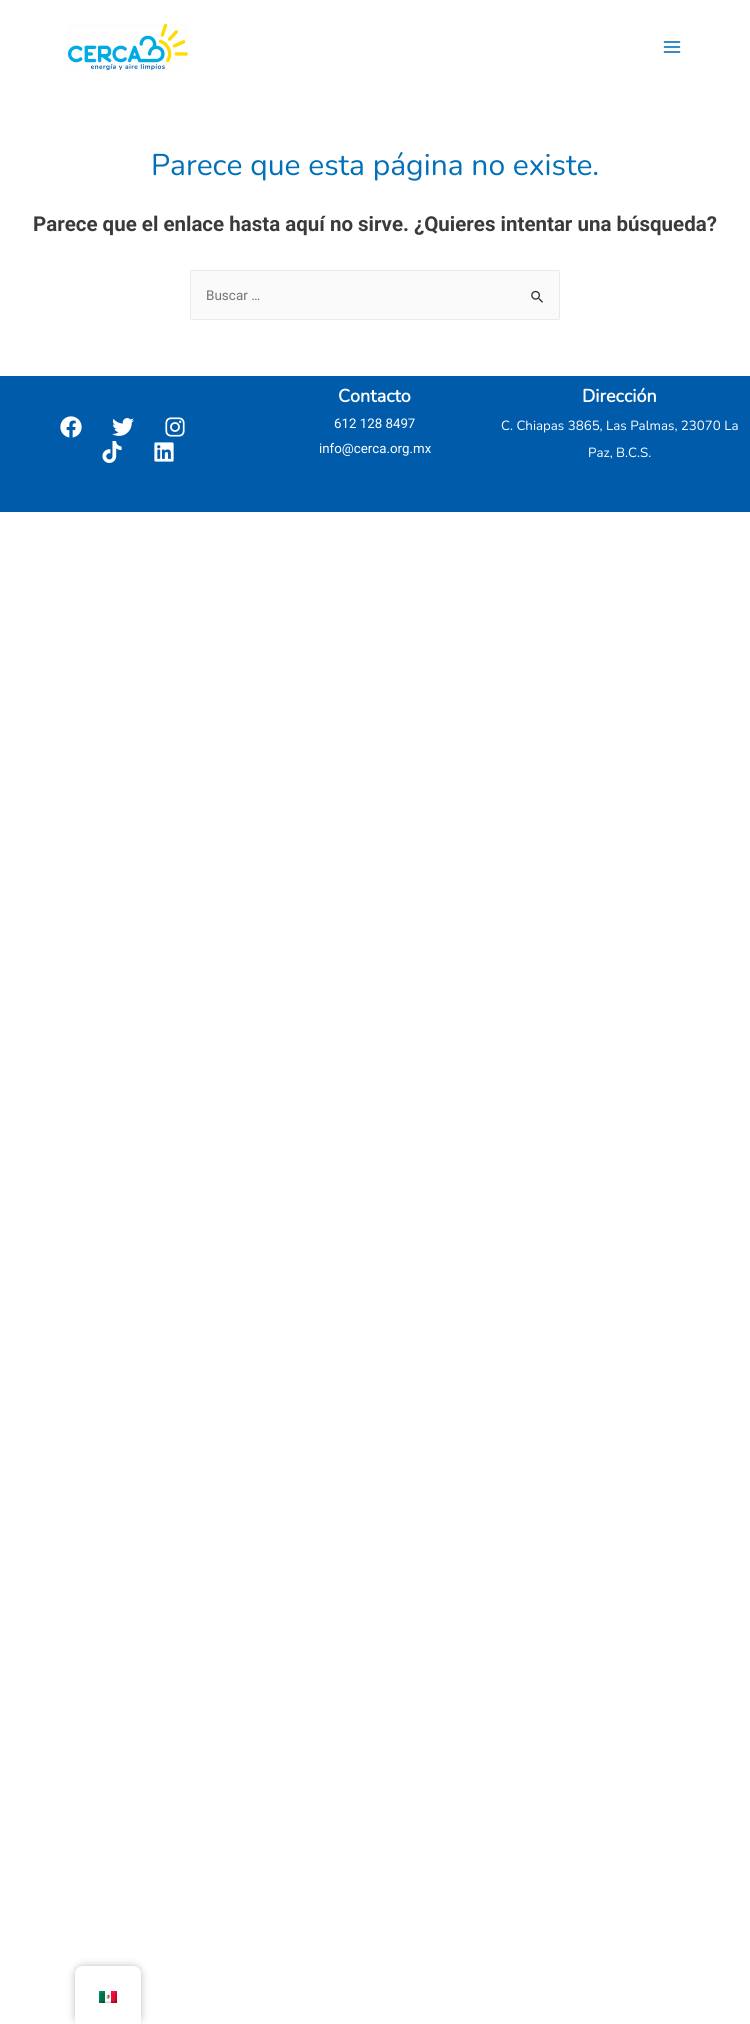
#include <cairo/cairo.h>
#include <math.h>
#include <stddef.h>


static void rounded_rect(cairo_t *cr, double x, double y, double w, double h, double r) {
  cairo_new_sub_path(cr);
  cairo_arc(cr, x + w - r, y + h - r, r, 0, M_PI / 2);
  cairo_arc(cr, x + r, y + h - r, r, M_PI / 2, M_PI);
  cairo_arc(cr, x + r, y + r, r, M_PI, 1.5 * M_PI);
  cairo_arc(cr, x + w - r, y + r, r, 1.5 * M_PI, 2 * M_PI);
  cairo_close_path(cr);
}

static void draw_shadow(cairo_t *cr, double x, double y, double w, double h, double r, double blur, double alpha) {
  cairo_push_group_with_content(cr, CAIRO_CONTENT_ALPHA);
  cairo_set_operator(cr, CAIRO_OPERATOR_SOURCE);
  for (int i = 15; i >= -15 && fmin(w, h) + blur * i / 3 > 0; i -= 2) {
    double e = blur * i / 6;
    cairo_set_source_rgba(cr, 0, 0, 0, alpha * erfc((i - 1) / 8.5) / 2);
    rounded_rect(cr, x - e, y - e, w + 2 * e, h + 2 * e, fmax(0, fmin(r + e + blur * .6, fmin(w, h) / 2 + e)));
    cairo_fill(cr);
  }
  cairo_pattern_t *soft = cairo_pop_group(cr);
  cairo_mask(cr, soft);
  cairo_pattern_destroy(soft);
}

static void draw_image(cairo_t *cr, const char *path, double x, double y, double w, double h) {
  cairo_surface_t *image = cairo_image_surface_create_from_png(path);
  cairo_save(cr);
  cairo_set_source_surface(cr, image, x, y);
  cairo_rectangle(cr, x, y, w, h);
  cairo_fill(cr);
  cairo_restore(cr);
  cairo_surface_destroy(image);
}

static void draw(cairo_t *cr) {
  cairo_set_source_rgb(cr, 1, 1, 1);
  cairo_paint(cr);
  draw_image(cr, "images/1.png", 68, 23, 120, 48);
  draw_image(cr, "images/2.png", 663, 41, 18, 12);
  cairo_set_source_rgb(cr, 250 / 255.0, 250 / 255.0, 250 / 255.0);
  rounded_rect(cr, 190.5, 270.5, 369, 49, 1.5);
  cairo_fill_preserve(cr);
  cairo_set_source_rgb(cr, 234 / 255.0, 234 / 255.0, 234 / 255.0);
  cairo_set_line_width(cr, 1);
  cairo_stroke(cr);
  draw_image(cr, "images/3.png", 531, 290, 12, 13);
  cairo_set_source_rgb(cr, 0, 91 / 255.0, 171 / 255.0);
  cairo_rectangle(cr, 0, 376, 750, 136);
  cairo_fill(cr);
  draw_image(cr, "images/4.png", 60, 416, 22, 22);
  draw_image(cr, "images/5.png", 112, 418, 22, 18);
  draw_image(cr, "images/6.png", 165, 417, 20, 20);
  draw_image(cr, "images/7.png", 102, 441, 20, 22);
  draw_image(cr, "images/8.png", 154, 442, 20, 20);
  cairo_set_source_rgb(cr, 0, 0, 0);
  draw_shadow(cr, 75, 1966, 66, 58, 8, 4, 0.25);
  cairo_set_source_rgb(cr, 1, 1, 1);
  cairo_new_path(cr);
  cairo_move_to(cr, 83, 1966);
  cairo_line_to(cr, 133, 1966);
  cairo_curve_to(cr, 137.5, 1966, 141, 1969.5, 141, 1974);
  cairo_line_to(cr, 141, 2024);
  cairo_line_to(cr, 75, 2024);
  cairo_line_to(cr, 75, 1974);
  cairo_curve_to(cr, 75, 1969.5, 78.5, 1966, 83, 1966);
  cairo_close_path(cr);
  cairo_fill(cr);
  draw_image(cr, "images/9.png", 99, 1991, 18, 12);
  cairo_select_font_face(cr, "Nunito ExtraLight", CAIRO_FONT_SLANT_NORMAL, CAIRO_FONT_WEIGHT_NORMAL);
  cairo_set_font_size(cr, 30);
  cairo_set_source_rgb(cr, 1 / 255.0, 112 / 255.0, 185 / 255.0);
  cairo_move_to(cr, 151, 175);
  cairo_show_text(cr, "Parece que esta página no existe.");
  cairo_select_font_face(cr, "Roboto", CAIRO_FONT_SLANT_NORMAL, CAIRO_FONT_WEIGHT_BOLD);
  cairo_set_font_size(cr, 20.5);
  cairo_set_source_rgb(cr, 58 / 255.0, 58 / 255.0, 58 / 255.0);
  cairo_move_to(cr, 33, 231);
  cairo_show_text(cr, "Parece que el enlace hasta aquí no sirve. ¿Quieres intentar una búsqueda?");
  cairo_select_font_face(cr, "Roboto", CAIRO_FONT_SLANT_NORMAL, CAIRO_FONT_WEIGHT_NORMAL);
  cairo_set_font_size(cr, 13.5);
  cairo_set_source_rgb(cr, 117 / 255.0, 117 / 255.0, 117 / 255.0);
  cairo_move_to(cr, 206, 300);
  cairo_show_text(cr, "Buscar …");
  cairo_select_font_face(cr, "Nunito", CAIRO_FONT_SLANT_NORMAL, CAIRO_FONT_WEIGHT_BOLD);
  cairo_set_font_size(cr, 18);
  cairo_set_source_rgb(cr, 1, 1, 1);
  cairo_move_to(cr, 338, 402);
  cairo_show_text(cr, "Contacto");
  cairo_select_font_face(cr, "Roboto", CAIRO_FONT_SLANT_NORMAL, CAIRO_FONT_WEIGHT_NORMAL);
  cairo_set_font_size(cr, 13.3);
  cairo_move_to(cr, 334, 428);
  cairo_show_text(cr, "612 128 8497");
  cairo_move_to(cr, 319, 453);
  cairo_show_text(cr, "info@cerca.org.mx");
  cairo_select_font_face(cr, "Nunito", CAIRO_FONT_SLANT_NORMAL, CAIRO_FONT_WEIGHT_BOLD);
  cairo_set_font_size(cr, 18);
  cairo_move_to(cr, 582, 402);
  cairo_show_text(cr, "Dirección");
  cairo_select_font_face(cr, "Nunito ExtraLight", CAIRO_FONT_SLANT_NORMAL, CAIRO_FONT_WEIGHT_NORMAL);
  cairo_set_font_size(cr, 13.3);
  cairo_move_to(cr, 501, 430);
  cairo_show_text(cr, "C. Chiapas 3865, Las Palmas, 23070 La");
  cairo_move_to(cr, 588, 457);
  cairo_show_text(cr, "Paz, B.C.S.");
}

int main(void) {
  cairo_surface_t *surface = cairo_image_surface_create(CAIRO_FORMAT_RGB24, 750, 2024);
  cairo_t *cr = cairo_create(surface);
  cairo_font_options_t *options = cairo_font_options_create();
  cairo_font_options_set_hint_metrics(options, CAIRO_HINT_METRICS_OFF);
  cairo_font_options_set_hint_style(options, CAIRO_HINT_STYLE_NONE);
  cairo_set_font_options(cr, options);
  cairo_set_miter_limit(cr, 4);
  draw(cr);
  cairo_surface_write_to_png(surface, "out.png");
  cairo_font_options_destroy(options);
  cairo_destroy(cr);
  cairo_surface_destroy(surface);
  return 0;
}
